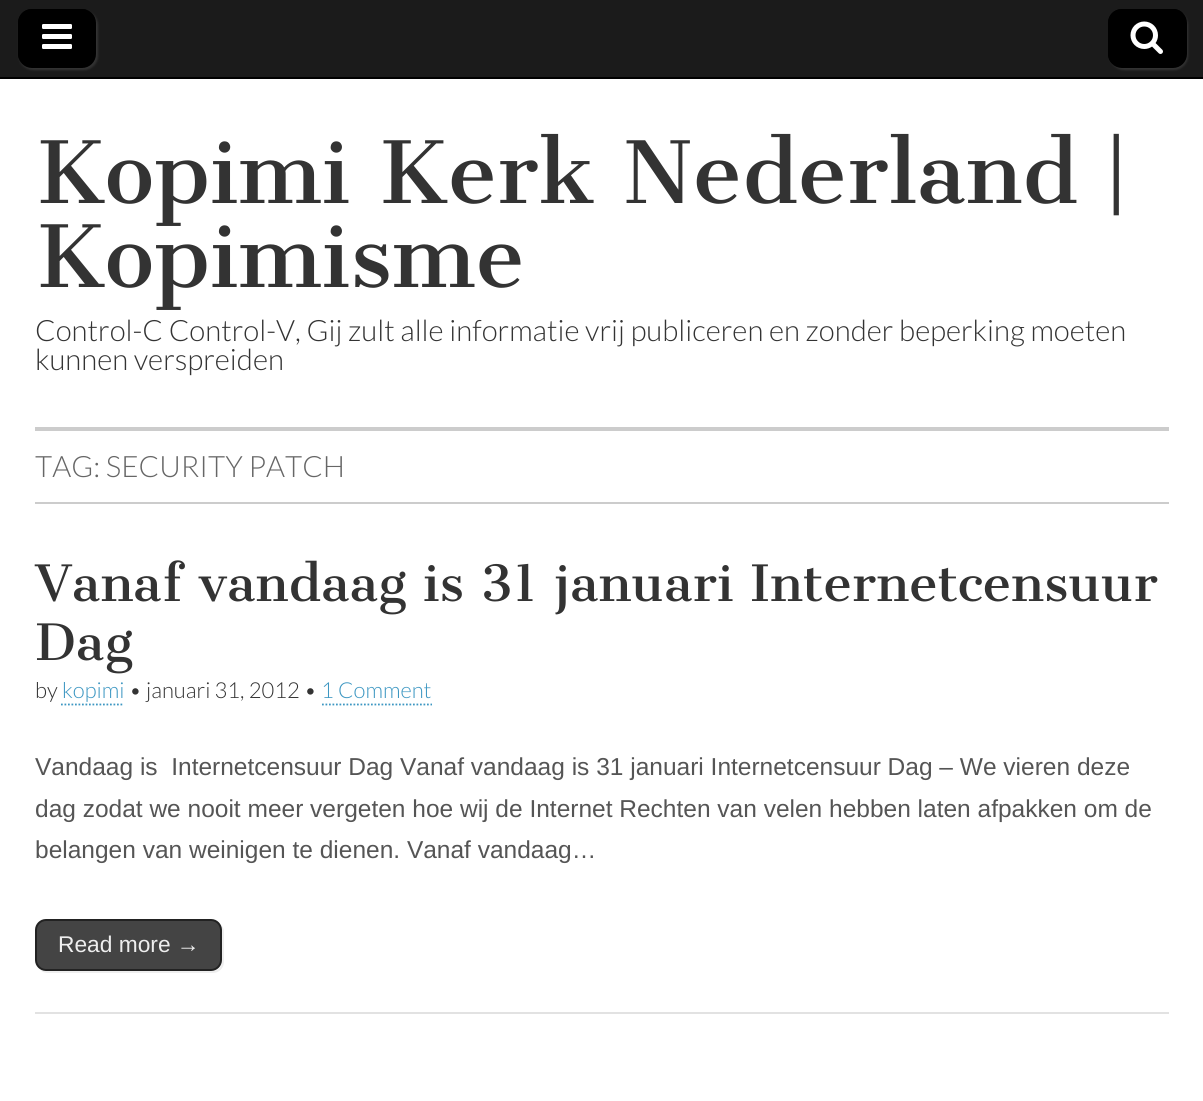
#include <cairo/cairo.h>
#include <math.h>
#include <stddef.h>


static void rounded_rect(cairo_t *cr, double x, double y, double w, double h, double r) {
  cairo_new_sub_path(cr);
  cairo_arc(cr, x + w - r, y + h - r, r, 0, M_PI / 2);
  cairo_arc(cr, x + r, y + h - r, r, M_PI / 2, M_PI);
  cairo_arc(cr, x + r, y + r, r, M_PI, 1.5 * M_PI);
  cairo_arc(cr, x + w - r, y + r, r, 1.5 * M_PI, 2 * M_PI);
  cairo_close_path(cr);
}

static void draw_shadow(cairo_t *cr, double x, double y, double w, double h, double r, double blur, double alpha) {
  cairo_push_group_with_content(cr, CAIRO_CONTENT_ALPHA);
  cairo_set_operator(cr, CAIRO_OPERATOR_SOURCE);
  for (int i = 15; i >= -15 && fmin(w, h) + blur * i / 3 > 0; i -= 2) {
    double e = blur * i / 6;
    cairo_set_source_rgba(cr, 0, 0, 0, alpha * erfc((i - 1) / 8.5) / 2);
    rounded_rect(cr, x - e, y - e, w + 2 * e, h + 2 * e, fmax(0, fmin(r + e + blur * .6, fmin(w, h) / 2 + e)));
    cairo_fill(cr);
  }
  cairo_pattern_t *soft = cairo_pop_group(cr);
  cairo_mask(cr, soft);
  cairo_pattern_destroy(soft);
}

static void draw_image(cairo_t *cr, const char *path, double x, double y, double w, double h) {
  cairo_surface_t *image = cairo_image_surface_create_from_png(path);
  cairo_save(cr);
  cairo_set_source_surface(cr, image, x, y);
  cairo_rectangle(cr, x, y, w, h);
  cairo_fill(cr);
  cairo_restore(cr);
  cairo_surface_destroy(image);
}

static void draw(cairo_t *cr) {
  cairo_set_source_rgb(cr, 1, 1, 1);
  cairo_paint(cr);
  cairo_set_source_rgb(cr, 27 / 255.0, 27 / 255.0, 27 / 255.0);
  cairo_rectangle(cr, 0, 0, 1203, 77);
  cairo_fill(cr);
  cairo_set_source_rgb(cr, 0, 0, 0);
  cairo_rectangle(cr, 0, 77, 1203, 2);
  cairo_fill(cr);
  cairo_set_source_rgb(cr, 51 / 255.0, 51 / 255.0, 51 / 255.0);
  draw_shadow(cr, 19, 11, 79, 59, 14, 1, 1);
  cairo_set_source_rgb(cr, 0, 0, 0);
  rounded_rect(cr, 18, 9, 78, 59, 14);
  cairo_fill(cr);
  cairo_new_path(cr);
  cairo_move_to(cr, 33, 10);
  cairo_line_to(cr, 84, 10);
  cairo_curve_to(cr, 86, 10, 88, 10, 89, 11);
  cairo_curve_to(cr, 87, 10, 85, 9, 82, 9);
  cairo_line_to(cr, 32, 9);
  cairo_curve_to(cr, 24, 9, 18, 15, 18, 23);
  cairo_line_to(cr, 18, 54);
  cairo_curve_to(cr, 18, 57, 19, 59, 20, 61);
  cairo_curve_to(cr, 19, 60, 19, 58, 19, 56);
  cairo_line_to(cr, 19, 24);
  cairo_curve_to(cr, 19, 17, 26, 10, 33, 10);
  cairo_close_path(cr);
  cairo_fill(cr);
  draw_image(cr, "images/1.png", 42, 24, 30, 25);
  cairo_set_source_rgb(cr, 51 / 255.0, 51 / 255.0, 51 / 255.0);
  draw_shadow(cr, 1110, 11, 78, 59, 14, 1, 1);
  cairo_set_source_rgb(cr, 0, 0, 0);
  rounded_rect(cr, 1108, 9, 79, 59, 14);
  cairo_fill(cr);
  cairo_new_path(cr);
  cairo_move_to(cr, 1124, 10);
  cairo_line_to(cr, 1174, 10);
  cairo_curve_to(cr, 1178, 10, 1182, 12, 1184, 15);
  cairo_curve_to(cr, 1182, 11, 1178, 9, 1173, 9);
  cairo_line_to(cr, 1122, 9);
  cairo_curve_to(cr, 1114, 9, 1108, 15, 1108, 23);
  cairo_line_to(cr, 1108, 54);
  cairo_curve_to(cr, 1108, 58, 1110, 62, 1113, 64);
  cairo_curve_to(cr, 1111, 62, 1110, 59, 1110, 56);
  cairo_line_to(cr, 1110, 24);
  cairo_curve_to(cr, 1110, 17, 1116, 10, 1124, 10);
  cairo_close_path(cr);
  cairo_fill(cr);
  draw_image(cr, "images/2.png", 1130, 21, 33, 33);
  cairo_set_source_rgb(cr, 204 / 255.0, 204 / 255.0, 204 / 255.0);
  cairo_rectangle(cr, 35, 427, 1134, 4);
  cairo_fill(cr);
  cairo_rectangle(cr, 35, 502, 1134, 2);
  cairo_fill(cr);
  cairo_new_path(cr);
  cairo_move_to(cr, 61, 704.5);
  cairo_line_to(cr, 124, 704.5);
  cairo_set_source_rgb(cr, 61 / 255.0, 151 / 255.0, 194 / 255.0);
  cairo_set_line_width(cr, 1.8);
  cairo_set_dash(cr, (double[]){1.75, 1.75}, 2, 0);
  cairo_stroke(cr);
  cairo_new_path(cr);
  cairo_move_to(cr, 322, 704.5);
  cairo_line_to(cr, 432, 704.5);
  cairo_stroke(cr);
  cairo_set_source_rgb(cr, 226 / 255.0, 226 / 255.0, 226 / 255.0);
  cairo_rectangle(cr, 35, 1012, 1134, 2);
  cairo_fill(cr);
  cairo_set_source_rgb(cr, 238 / 255.0, 238 / 255.0, 238 / 255.0);
  cairo_new_path(cr);
  cairo_move_to(cr, 40, 970);
  cairo_curve_to(cr, 42, 972, 45, 973, 48, 973);
  cairo_line_to(cr, 213, 973);
  cairo_curve_to(cr, 219, 973, 224, 968, 224, 962);
  cairo_line_to(cr, 224, 932);
  cairo_curve_to(cr, 224, 929, 223, 927, 221, 925);
  cairo_curve_to(cr, 222, 926, 222, 928, 222, 929);
  cairo_line_to(cr, 222, 961);
  cairo_curve_to(cr, 222, 967, 218, 971, 212, 971);
  cairo_line_to(cr, 46, 971);
  cairo_curve_to(cr, 44, 971, 42, 971, 40, 970);
  cairo_close_path(cr);
  cairo_fill(cr);
  cairo_set_source_rgb(cr, 68 / 255.0, 68 / 255.0, 68 / 255.0);
  rounded_rect(cr, 36, 920, 185, 50, 10);
  cairo_fill_preserve(cr);
  cairo_set_source_rgb(cr, 34 / 255.0, 34 / 255.0, 34 / 255.0);
  cairo_set_line_width(cr, 2);
  cairo_set_dash(cr, NULL, 0, 0);
  cairo_stroke(cr);
  cairo_select_font_face(cr, "Cantata One", CAIRO_FONT_SLANT_NORMAL, CAIRO_FONT_WEIGHT_NORMAL);
  cairo_set_font_size(cr, 84);
  cairo_set_source_rgb(cr, 51 / 255.0, 51 / 255.0, 51 / 255.0);
  cairo_move_to(cr, 35, 203);
  cairo_show_text(cr, "Kopimi Kerk Nederland |");
  cairo_move_to(cr, 35, 287);
  cairo_show_text(cr, "Kopimisme");
  cairo_select_font_face(cr, "Lato Light", CAIRO_FONT_SLANT_NORMAL, CAIRO_FONT_WEIGHT_NORMAL);
  cairo_set_font_size(cr, 29.4);
  cairo_move_to(cr, 35, 341);
  cairo_show_text(cr, "Control-C Control-V, Gij zult alle informatie vrij publiceren en zonder beperking moeten");
  cairo_move_to(cr, 35, 370);
  cairo_show_text(cr, "kunnen verspreiden");
  cairo_set_source_rgb(cr, 102 / 255.0, 102 / 255.0, 102 / 255.0);
  cairo_move_to(cr, 35, 477);
  cairo_show_text(cr, "TAG: SECURITY PATCH");
  cairo_select_font_face(cr, "Cantata One", CAIRO_FONT_SLANT_NORMAL, CAIRO_FONT_WEIGHT_NORMAL);
  cairo_set_font_size(cr, 49);
  cairo_set_source_rgb(cr, 51 / 255.0, 51 / 255.0, 51 / 255.0);
  cairo_move_to(cr, 35, 601);
  cairo_show_text(cr, "Vanaf vandaag is 31 januari Internetcensuur");
  cairo_move_to(cr, 35, 660);
  cairo_show_text(cr, "Dag");
  cairo_select_font_face(cr, "Lato Light", CAIRO_FONT_SLANT_NORMAL, CAIRO_FONT_WEIGHT_NORMAL);
  cairo_set_font_size(cr, 22);
  cairo_move_to(cr, 35, 698);
  cairo_show_text(cr, "by");
  cairo_set_source_rgb(cr, 61 / 255.0, 151 / 255.0, 194 / 255.0);
  cairo_move_to(cr, 62, 698);
  cairo_show_text(cr, "kopimi");
  cairo_set_source_rgb(cr, 51 / 255.0, 51 / 255.0, 51 / 255.0);
  cairo_move_to(cr, 129, 698);
  cairo_show_text(cr, "• januari 31, 2012 •");
  cairo_set_source_rgb(cr, 61 / 255.0, 151 / 255.0, 194 / 255.0);
  cairo_move_to(cr, 321, 698);
  cairo_show_text(cr, "1 Comment");
  cairo_select_font_face(cr, "Liberation Sans", CAIRO_FONT_SLANT_NORMAL, CAIRO_FONT_WEIGHT_NORMAL);
  cairo_set_font_size(cr, 24.5);
  cairo_set_source_rgb(cr, 85 / 255.0, 85 / 255.0, 85 / 255.0);
  cairo_move_to(cr, 35, 775);
  cairo_show_text(cr, "Vandaag is  Internetcensuur Dag Vanaf vandaag is 31 januari Internetcensuur Dag – We vieren deze");
  cairo_move_to(cr, 35, 817);
  cairo_show_text(cr, "dag zodat we nooit meer vergeten hoe wij de Internet Rechten van velen hebben laten afpakken om de");
  cairo_move_to(cr, 35, 858);
  cairo_show_text(cr, "belangen van weinigen te dienen. Vanaf vandaag…");
  cairo_set_font_size(cr, 22.75);
  cairo_set_source_rgb(cr, 238 / 255.0, 238 / 255.0, 238 / 255.0);
  cairo_move_to(cr, 58, 952);
  cairo_show_text(cr, "Read more →");
}

int main(void) {
  cairo_surface_t *surface = cairo_image_surface_create(CAIRO_FORMAT_RGB24, 1203, 1101);
  cairo_t *cr = cairo_create(surface);
  cairo_font_options_t *options = cairo_font_options_create();
  cairo_font_options_set_hint_metrics(options, CAIRO_HINT_METRICS_OFF);
  cairo_font_options_set_hint_style(options, CAIRO_HINT_STYLE_NONE);
  cairo_set_font_options(cr, options);
  cairo_set_miter_limit(cr, 4);
  draw(cr);
  cairo_surface_write_to_png(surface, "out.png");
  cairo_font_options_destroy(options);
  cairo_destroy(cr);
  cairo_surface_destroy(surface);
  return 0;
}
